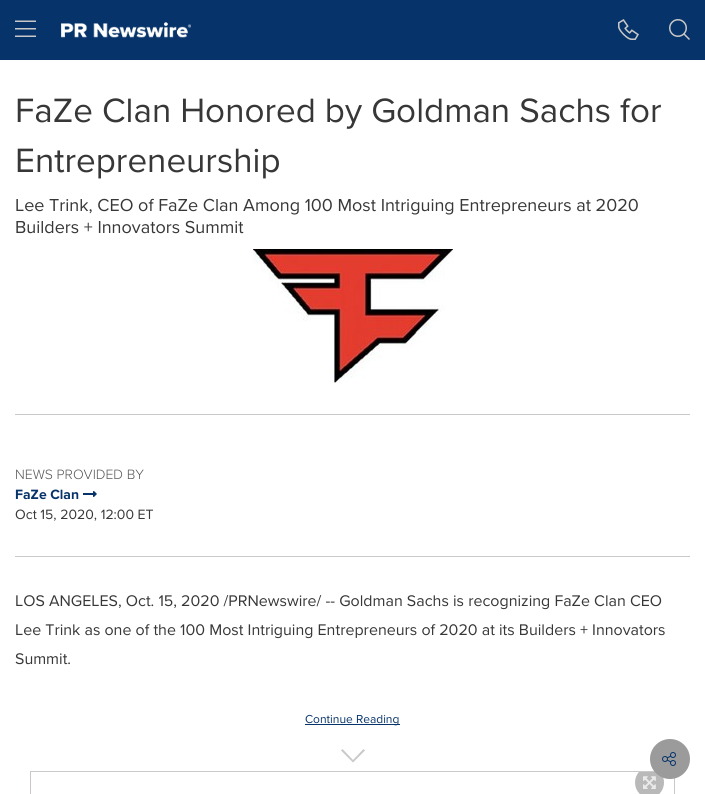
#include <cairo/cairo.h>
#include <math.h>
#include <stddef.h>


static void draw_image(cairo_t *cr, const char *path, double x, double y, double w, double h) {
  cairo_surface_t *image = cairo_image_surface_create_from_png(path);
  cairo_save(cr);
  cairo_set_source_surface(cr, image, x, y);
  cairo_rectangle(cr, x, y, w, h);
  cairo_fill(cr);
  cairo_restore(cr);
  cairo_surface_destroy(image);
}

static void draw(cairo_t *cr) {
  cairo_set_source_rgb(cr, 1, 1, 1);
  cairo_paint(cr);
  cairo_set_source_rgb(cr, 6 / 255.0, 51 / 255.0, 105 / 255.0);
  cairo_rectangle(cr, 0, 0, 705, 60);
  cairo_fill(cr);
  draw_image(cr, "images/1.png", 15, 20, 21, 17);
  draw_image(cr, "images/2.png", 61, 22, 130, 16);
  draw_image(cr, "images/3.png", 618, 19, 21, 21);
  draw_image(cr, "images/4.png", 669, 19, 21, 21);
  draw_image(cr, "images/5.png", 253, 249, 200, 134);
  cairo_set_source_rgb(cr, 202 / 255.0, 200 / 255.0, 200 / 255.0);
  cairo_rectangle(cr, 15, 414, 675, 1);
  cairo_fill(cr);
  draw_image(cr, "images/6.png", 83, 491, 14, 6);
  cairo_rectangle(cr, 30.5, 771.5, 644, 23);
  cairo_set_line_width(cr, 1);
  cairo_stroke(cr);
  cairo_save(cr);
  cairo_rectangle(cr, 31, 772, 643, 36);
  cairo_clip(cr);
  cairo_set_source_rgb(cr, 185 / 255.0, 185 / 255.0, 185 / 255.0);
  cairo_new_path(cr);
  cairo_move_to(cr, 649.5, 767);
  cairo_curve_to(cr, 657.5, 767, 664, 774, 664, 782.5);
  cairo_curve_to(cr, 664, 791, 657.5, 798, 649.5, 798);
  cairo_curve_to(cr, 641.5, 798, 635, 791, 635, 782.5);
  cairo_curve_to(cr, 635, 774, 641.5, 767, 649.5, 767);
  cairo_close_path(cr);
  cairo_fill(cr);
  cairo_restore(cr);
  draw_image(cr, "images/8.png", 643, 776, 13, 13);
  cairo_set_source_rgb(cr, 155 / 255.0, 155 / 255.0, 155 / 255.0);
  cairo_arc(cr, 670, 759, 20, 0, 2 * M_PI);
  cairo_fill(cr);
  draw_image(cr, "images/7.png", 662, 752, 14, 14);
  cairo_set_source_rgb(cr, 202 / 255.0, 200 / 255.0, 200 / 255.0);
  cairo_rectangle(cr, 15, 556, 675, 1);
  cairo_fill(cr);
  cairo_set_source_rgb(cr, 6 / 255.0, 51 / 255.0, 105 / 255.0);
  cairo_rectangle(cr, 305, 724, 95, 1);
  cairo_fill(cr);
  cairo_set_source_rgb(cr, 202 / 255.0, 200 / 255.0, 200 / 255.0);
  cairo_new_path(cr);
  cairo_move_to(cr, 353, 762.5);
  cairo_line_to(cr, 341, 750.5);
  cairo_line_to(cr, 342.5, 749);
  cairo_line_to(cr, 353, 760);
  cairo_line_to(cr, 363.5, 749);
  cairo_line_to(cr, 365, 750.5);
  cairo_close_path(cr);
  cairo_fill(cr);
  cairo_select_font_face(cr, "Proxima Nova", CAIRO_FONT_SLANT_NORMAL, CAIRO_FONT_WEIGHT_NORMAL);
  cairo_set_font_size(cr, 35);
  cairo_set_source_rgb(cr, 55 / 255.0, 55 / 255.0, 55 / 255.0);
  cairo_move_to(cr, 15, 122);
  cairo_show_text(cr, "FaZe Clan Honored by Goldman Sachs for");
  cairo_move_to(cr, 15, 172);
  cairo_show_text(cr, "Entrepreneurship");
  cairo_set_font_size(cr, 18);
  cairo_move_to(cr, 15, 211);
  cairo_show_text(cr, "Lee Trink, CEO of FaZe Clan Among 100 Most Intriguing Entrepreneurs at 2020");
  cairo_move_to(cr, 15, 233);
  cairo_show_text(cr, "Builders + Innovators Summit");
  cairo_select_font_face(cr, "Proxima Nova Light", CAIRO_FONT_SLANT_NORMAL, CAIRO_FONT_WEIGHT_NORMAL);
  cairo_set_font_size(cr, 14);
  cairo_set_source_rgb(cr, 87 / 255.0, 87 / 255.0, 87 / 255.0);
  cairo_move_to(cr, 15, 479);
  cairo_show_text(cr, "NEWS PROVIDED BY");
  cairo_select_font_face(cr, "Proxima Nova", CAIRO_FONT_SLANT_NORMAL, CAIRO_FONT_WEIGHT_BOLD);
  cairo_set_source_rgb(cr, 6 / 255.0, 51 / 255.0, 105 / 255.0);
  cairo_move_to(cr, 15, 499);
  cairo_show_text(cr, "FaZe Clan");
  cairo_select_font_face(cr, "Proxima Nova", CAIRO_FONT_SLANT_NORMAL, CAIRO_FONT_WEIGHT_NORMAL);
  cairo_set_source_rgb(cr, 55 / 255.0, 55 / 255.0, 55 / 255.0);
  cairo_move_to(cr, 15, 519);
  cairo_show_text(cr, "Oct 15, 2020, 12:00 ET");
  cairo_set_font_size(cr, 16);
  cairo_move_to(cr, 15, 606);
  cairo_show_text(cr, "LOS ANGELES, Oct. 15, 2020 /PRNewswire/ -- Goldman Sachs is recognizing FaZe Clan CEO");
  cairo_move_to(cr, 15, 635);
  cairo_show_text(cr, "Lee Trink as one of the 100 Most Intriguing Entrepreneurs of 2020 at its Builders + Innovators");
  cairo_move_to(cr, 15, 664);
  cairo_show_text(cr, "Summit.");
  cairo_set_font_size(cr, 12);
  cairo_set_source_rgb(cr, 6 / 255.0, 51 / 255.0, 105 / 255.0);
  cairo_move_to(cr, 305, 723);
  cairo_show_text(cr, "Continue Reading");
}

int main(void) {
  cairo_surface_t *surface = cairo_image_surface_create(CAIRO_FORMAT_RGB24, 705, 794);
  cairo_t *cr = cairo_create(surface);
  cairo_font_options_t *options = cairo_font_options_create();
  cairo_font_options_set_hint_metrics(options, CAIRO_HINT_METRICS_OFF);
  cairo_font_options_set_hint_style(options, CAIRO_HINT_STYLE_NONE);
  cairo_set_font_options(cr, options);
  cairo_set_miter_limit(cr, 4);
  draw(cr);
  cairo_surface_write_to_png(surface, "out.png");
  cairo_font_options_destroy(options);
  cairo_destroy(cr);
  cairo_surface_destroy(surface);
  return 0;
}
